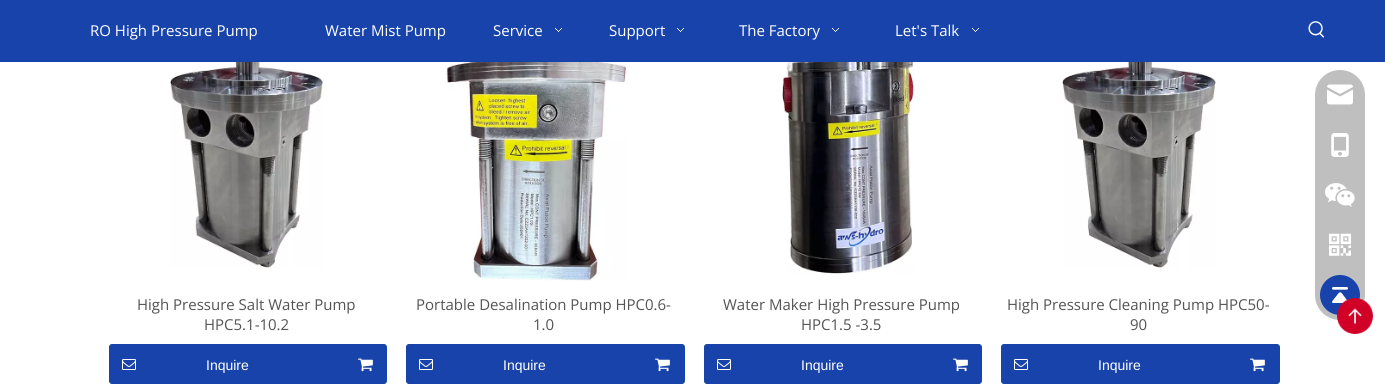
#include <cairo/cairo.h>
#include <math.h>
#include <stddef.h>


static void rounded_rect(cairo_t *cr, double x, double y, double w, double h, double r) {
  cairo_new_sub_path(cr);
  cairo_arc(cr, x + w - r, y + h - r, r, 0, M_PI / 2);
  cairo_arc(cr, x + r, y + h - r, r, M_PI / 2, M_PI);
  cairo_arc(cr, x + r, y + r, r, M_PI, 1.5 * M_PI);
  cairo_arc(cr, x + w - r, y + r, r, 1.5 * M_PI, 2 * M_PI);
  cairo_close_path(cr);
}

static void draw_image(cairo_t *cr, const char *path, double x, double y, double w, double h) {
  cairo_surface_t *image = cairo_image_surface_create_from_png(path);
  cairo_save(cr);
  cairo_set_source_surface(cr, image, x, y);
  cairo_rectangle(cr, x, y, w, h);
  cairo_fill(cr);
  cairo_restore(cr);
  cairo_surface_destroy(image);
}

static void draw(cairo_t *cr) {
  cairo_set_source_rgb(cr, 1, 1, 1);
  cairo_paint(cr);
  cairo_set_source_rgb(cr, 23 / 255.0, 67 / 255.0, 170 / 255.0);
  cairo_rectangle(cr, 0, 0, 1385, 62);
  cairo_fill(cr);
  draw_image(cr, "images/1.png", 555, 28, 7, 4);
  draw_image(cr, "images/1.png", 677, 28, 7, 4);
  draw_image(cr, "images/1.png", 832, 28, 7, 4);
  draw_image(cr, "images/1.png", 972, 28, 7, 4);
  draw_image(cr, "images/2.png", 1308, 21, 17, 17);
  cairo_set_source_rgb(cr, 191 / 255.0, 191 / 255.0, 191 / 255.0);
  rounded_rect(cr, 1315, 70, 50, 250, 25);
  cairo_fill(cr);
  draw_image(cr, "images/3.png", 1327, 84, 26, 21);
  draw_image(cr, "images/4.png", 1331, 133, 18, 24);
  draw_image(cr, "images/5.png", 1325, 183, 30, 24);
  draw_image(cr, "images/6.png", 1329, 233, 22, 23);
  cairo_set_source_rgb(cr, 23 / 255.0, 67 / 255.0, 170 / 255.0);
  cairo_arc(cr, 1340, 295, 20, 0, 2 * M_PI);
  cairo_fill(cr);
  draw_image(cr, "images/7.png", 1332, 287, 16, 16);
  draw_image(cr, "images/8.png", 169, 62, 154, 207);
  rounded_rect(cr, 109.5, 344.5, 276, 39, 2.5);
  cairo_fill_preserve(cr);
  cairo_set_line_width(cr, 1);
  cairo_stroke(cr);
  draw_image(cr, "images/9.png", 122, 359, 14, 11);
  cairo_new_path(cr);
  cairo_move_to(cr, 346, 344);
  cairo_line_to(cr, 384, 344);
  cairo_curve_to(cr, 385.5, 344, 387, 345.5, 387, 347);
  cairo_line_to(cr, 387, 381);
  cairo_curve_to(cr, 387, 382.5, 385.5, 384, 384, 384);
  cairo_line_to(cr, 346, 384);
  cairo_close_path(cr);
  cairo_fill(cr);
  draw_image(cr, "images/10.png", 358, 358, 15, 14);
  draw_image(cr, "images/11.png", 446, 62, 181, 219);
  rounded_rect(cr, 406.5, 344.5, 277, 39, 2.5);
  cairo_fill_preserve(cr);
  cairo_stroke(cr);
  draw_image(cr, "images/9.png", 419, 359, 14, 11);
  cairo_new_path(cr);
  cairo_move_to(cr, 644, 344);
  cairo_line_to(cr, 682, 344);
  cairo_curve_to(cr, 683.5, 344, 685, 345.5, 685, 347);
  cairo_line_to(cr, 685, 381);
  cairo_curve_to(cr, 685, 382.5, 683.5, 384, 682, 384);
  cairo_line_to(cr, 644, 384);
  cairo_close_path(cr);
  cairo_fill(cr);
  draw_image(cr, "images/10.png", 655, 358, 15, 14);
  draw_image(cr, "images/12.png", 782, 62, 132, 212);
  rounded_rect(cr, 704.5, 344.5, 276, 39, 2.5);
  cairo_fill_preserve(cr);
  cairo_stroke(cr);
  draw_image(cr, "images/9.png", 717, 359, 14, 11);
  cairo_new_path(cr);
  cairo_move_to(cr, 941, 344);
  cairo_line_to(cr, 979, 344);
  cairo_curve_to(cr, 980.5, 344, 982, 345.5, 982, 347);
  cairo_line_to(cr, 982, 381);
  cairo_curve_to(cr, 982, 382.5, 980.5, 384, 979, 384);
  cairo_line_to(cr, 941, 384);
  cairo_close_path(cr);
  cairo_fill(cr);
  draw_image(cr, "images/10.png", 953, 358, 15, 14);
  draw_image(cr, "images/13.png", 1062, 62, 154, 207);
  rounded_rect(cr, 1001.5, 344.5, 277, 39, 2.5);
  cairo_fill_preserve(cr);
  cairo_stroke(cr);
  draw_image(cr, "images/9.png", 1014, 359, 14, 11);
  cairo_new_path(cr);
  cairo_move_to(cr, 1239, 344);
  cairo_line_to(cr, 1277, 344);
  cairo_curve_to(cr, 1278.5, 344, 1280, 345.5, 1280, 347);
  cairo_line_to(cr, 1280, 381);
  cairo_curve_to(cr, 1280, 382.5, 1278.5, 384, 1277, 384);
  cairo_line_to(cr, 1239, 384);
  cairo_close_path(cr);
  cairo_fill(cr);
  draw_image(cr, "images/10.png", 1250, 358, 15, 14);
  draw_image(cr, "images/14.png", 1337, 298, 36, 36);
  cairo_select_font_face(cr, "Open Sans", CAIRO_FONT_SLANT_NORMAL, CAIRO_FONT_WEIGHT_NORMAL);
  cairo_set_font_size(cr, 15);
  cairo_set_source_rgb(cr, 1, 1, 1);
  cairo_move_to(cr, 90, 36);
  cairo_show_text(cr, "RO High Pressure Pump");
  cairo_move_to(cr, 325, 36);
  cairo_show_text(cr, "Water Mist Pump");
  cairo_move_to(cr, 493, 36);
  cairo_show_text(cr, "Service");
  cairo_move_to(cr, 609, 36);
  cairo_show_text(cr, "Support");
  cairo_move_to(cr, 739, 36);
  cairo_show_text(cr, "The Factory");
  cairo_move_to(cr, 895, 36);
  cairo_show_text(cr, "Let's Talk");
  cairo_set_source_rgb(cr, 84 / 255.0, 84 / 255.0, 84 / 255.0);
  cairo_move_to(cr, 137, 310);
  cairo_show_text(cr, "High Pressure Salt Water Pump");
  cairo_move_to(cr, 204, 330);
  cairo_show_text(cr, "HPC5.1-10.2");
  cairo_select_font_face(cr, "Liberation Sans", CAIRO_FONT_SLANT_NORMAL, CAIRO_FONT_WEIGHT_NORMAL);
  cairo_set_font_size(cr, 14);
  cairo_set_source_rgb(cr, 1, 1, 1);
  cairo_move_to(cr, 206, 370);
  cairo_show_text(cr, "Inquire");
  cairo_select_font_face(cr, "Open Sans", CAIRO_FONT_SLANT_NORMAL, CAIRO_FONT_WEIGHT_NORMAL);
  cairo_set_font_size(cr, 15);
  cairo_set_source_rgb(cr, 84 / 255.0, 84 / 255.0, 84 / 255.0);
  cairo_move_to(cr, 416, 310);
  cairo_show_text(cr, "Portable Desalination Pump HPC0.6-");
  cairo_move_to(cr, 533, 330);
  cairo_show_text(cr, "1.0");
  cairo_select_font_face(cr, "Liberation Sans", CAIRO_FONT_SLANT_NORMAL, CAIRO_FONT_WEIGHT_NORMAL);
  cairo_set_font_size(cr, 14);
  cairo_set_source_rgb(cr, 1, 1, 1);
  cairo_move_to(cr, 503, 370);
  cairo_show_text(cr, "Inquire");
  cairo_select_font_face(cr, "Open Sans", CAIRO_FONT_SLANT_NORMAL, CAIRO_FONT_WEIGHT_NORMAL);
  cairo_set_font_size(cr, 15);
  cairo_set_source_rgb(cr, 84 / 255.0, 84 / 255.0, 84 / 255.0);
  cairo_move_to(cr, 723, 310);
  cairo_show_text(cr, "Water Maker High Pressure Pump");
  cairo_move_to(cr, 801, 330);
  cairo_show_text(cr, "HPC1.5 -3.5");
  cairo_select_font_face(cr, "Liberation Sans", CAIRO_FONT_SLANT_NORMAL, CAIRO_FONT_WEIGHT_NORMAL);
  cairo_set_font_size(cr, 14);
  cairo_set_source_rgb(cr, 1, 1, 1);
  cairo_move_to(cr, 801, 370);
  cairo_show_text(cr, "Inquire");
  cairo_select_font_face(cr, "Open Sans", CAIRO_FONT_SLANT_NORMAL, CAIRO_FONT_WEIGHT_NORMAL);
  cairo_set_font_size(cr, 15);
  cairo_set_source_rgb(cr, 84 / 255.0, 84 / 255.0, 84 / 255.0);
  cairo_move_to(cr, 1007, 310);
  cairo_show_text(cr, "High Pressure Cleaning Pump HPC50-");
  cairo_move_to(cr, 1130, 330);
  cairo_show_text(cr, "90");
  cairo_select_font_face(cr, "Liberation Sans", CAIRO_FONT_SLANT_NORMAL, CAIRO_FONT_WEIGHT_NORMAL);
  cairo_set_font_size(cr, 14);
  cairo_set_source_rgb(cr, 1, 1, 1);
  cairo_move_to(cr, 1098, 370);
  cairo_show_text(cr, "Inquire");
}

int main(void) {
  cairo_surface_t *surface = cairo_image_surface_create(CAIRO_FORMAT_RGB24, 1385, 390);
  cairo_t *cr = cairo_create(surface);
  cairo_font_options_t *options = cairo_font_options_create();
  cairo_font_options_set_hint_metrics(options, CAIRO_HINT_METRICS_OFF);
  cairo_font_options_set_hint_style(options, CAIRO_HINT_STYLE_NONE);
  cairo_set_font_options(cr, options);
  cairo_set_miter_limit(cr, 4);
  draw(cr);
  cairo_surface_write_to_png(surface, "out.png");
  cairo_font_options_destroy(options);
  cairo_destroy(cr);
  cairo_surface_destroy(surface);
  return 0;
}
